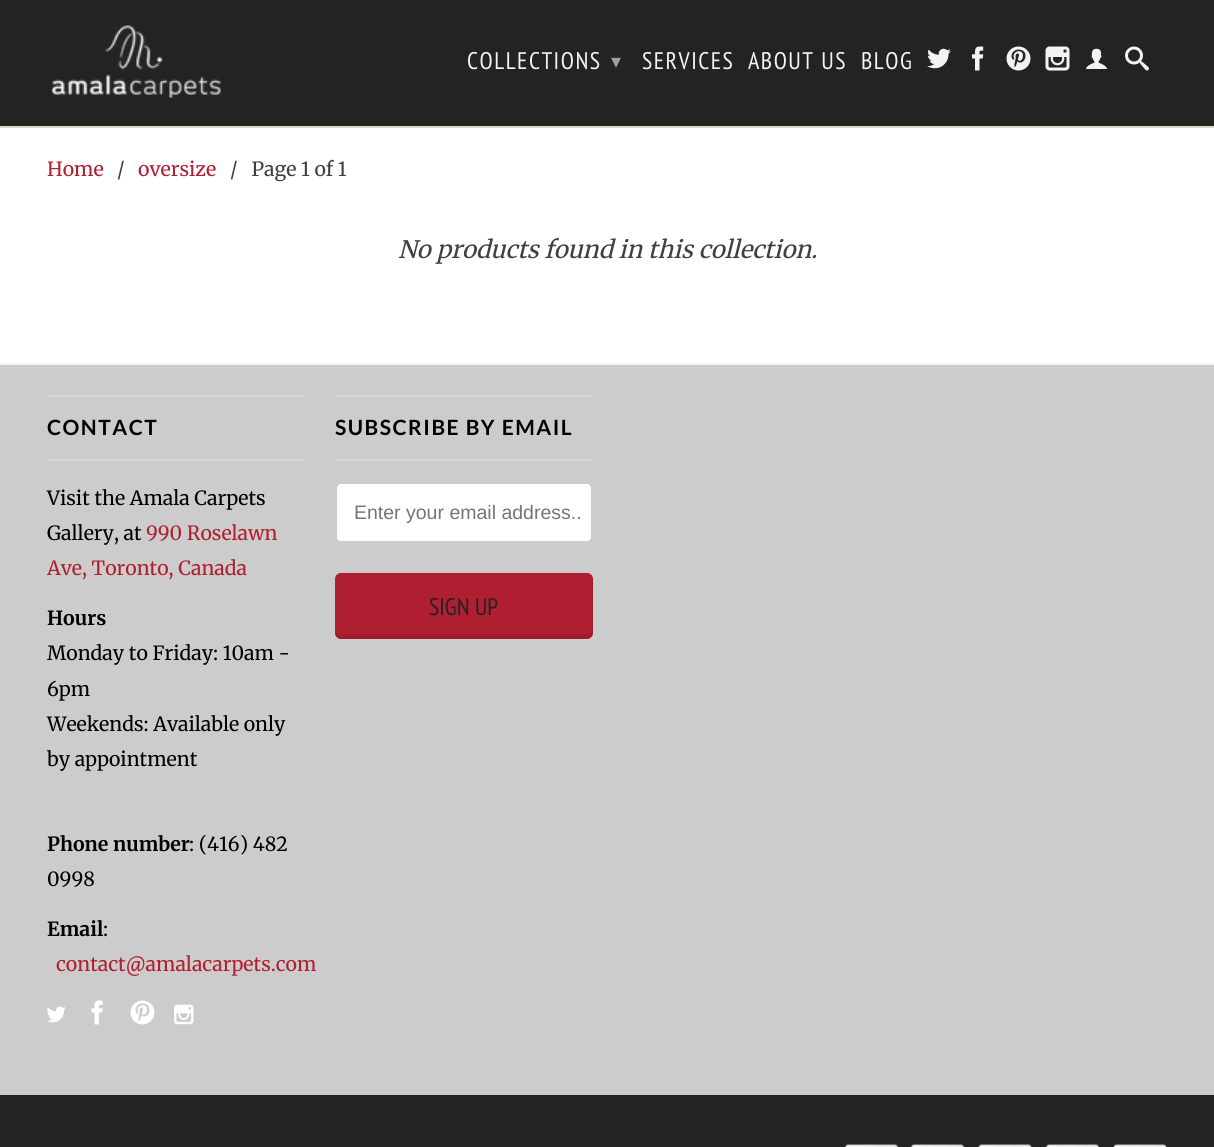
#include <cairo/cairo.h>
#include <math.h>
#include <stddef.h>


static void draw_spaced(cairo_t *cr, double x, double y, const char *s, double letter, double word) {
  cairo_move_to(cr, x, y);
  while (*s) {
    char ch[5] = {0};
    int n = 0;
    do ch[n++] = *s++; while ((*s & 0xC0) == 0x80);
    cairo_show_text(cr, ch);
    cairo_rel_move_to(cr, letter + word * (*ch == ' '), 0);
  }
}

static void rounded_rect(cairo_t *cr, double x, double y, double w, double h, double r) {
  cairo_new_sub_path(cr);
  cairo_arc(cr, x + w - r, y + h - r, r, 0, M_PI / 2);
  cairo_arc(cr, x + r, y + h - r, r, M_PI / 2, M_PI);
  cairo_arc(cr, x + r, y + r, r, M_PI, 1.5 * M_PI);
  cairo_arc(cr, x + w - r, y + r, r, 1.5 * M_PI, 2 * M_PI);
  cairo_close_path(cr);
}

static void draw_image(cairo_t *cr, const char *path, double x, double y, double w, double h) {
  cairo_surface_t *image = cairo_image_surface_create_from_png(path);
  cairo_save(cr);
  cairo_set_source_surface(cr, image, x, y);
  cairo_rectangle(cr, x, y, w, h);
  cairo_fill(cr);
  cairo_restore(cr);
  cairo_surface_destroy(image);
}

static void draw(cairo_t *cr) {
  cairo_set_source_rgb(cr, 1, 1, 1);
  cairo_paint(cr);
  cairo_set_source_rgb(cr, 35 / 255.0, 35 / 255.0, 36 / 255.0);
  cairo_rectangle(cr, 0, 0, 1214, 126);
  cairo_fill(cr);
  cairo_set_source_rgb(cr, 222 / 255.0, 214 / 255.0, 199 / 255.0);
  cairo_rectangle(cr, 0, 126, 1214, 2);
  cairo_fill(cr);
  draw_image(cr, "images/1.png", 51, 25, 171, 73);
  draw_image(cr, "images/2.png", 927, 48, 24, 21);
  draw_image(cr, "images/3.png", 972, 46, 12, 25);
  draw_image(cr, "images/4.png", 1006, 46, 25, 25);
  draw_image(cr, "images/5.png", 1045, 46, 25, 25);
  draw_image(cr, "images/6.png", 1086, 48, 21, 21);
  draw_image(cr, "images/7.png", 1125, 46, 24, 25);
  cairo_set_source_rgb(cr, 204 / 255.0, 204 / 255.0, 204 / 255.0);
  cairo_rectangle(cr, 0, 365, 1214, 730);
  cairo_fill(cr);
  cairo_set_source_rgb(cr, 243 / 255.0, 243 / 255.0, 242 / 255.0);
  cairo_rectangle(cr, 0, 363, 1214, 2);
  cairo_fill(cr);
  cairo_set_source_rgb(cr, 222 / 255.0, 214 / 255.0, 199 / 255.0);
  cairo_rectangle(cr, 47, 395, 258, 2);
  cairo_fill(cr);
  cairo_rectangle(cr, 47, 459, 258, 2);
  cairo_fill(cr);
  draw_image(cr, "images/8.png", 47, 1006, 19, 17);
  draw_image(cr, "images/9.png", 91, 1000, 12, 25);
  draw_image(cr, "images/10.png", 130, 1000, 25, 25);
  draw_image(cr, "images/11.png", 174, 1004, 20, 21);
  cairo_rectangle(cr, 335, 395, 258, 2);
  cairo_fill(cr);
  cairo_rectangle(cr, 335, 459, 258, 2);
  cairo_fill(cr);
  cairo_set_source_rgb(cr, 1, 1, 1);
  rounded_rect(cr, 336, 483, 256, 59, 5);
  cairo_fill_preserve(cr);
  cairo_set_source_rgb(cr, 204 / 255.0, 204 / 255.0, 204 / 255.0);
  cairo_stroke(cr);
  cairo_set_source_rgb(cr, 175 / 255.0, 31 / 255.0, 49 / 255.0);
  rounded_rect(cr, 335, 573, 258, 66, 6);
  cairo_fill(cr);
  cairo_set_source_rgba(cr, 0, 0, 0, 0.1);
  cairo_new_path(cr);
  cairo_move_to(cr, 335, 632);
  cairo_line_to(cr, 335, 633);
  cairo_curve_to(cr, 335, 636, 338, 639, 341, 639);
  cairo_line_to(cr, 587, 639);
  cairo_curve_to(cr, 590, 639, 593, 636, 593, 633);
  cairo_line_to(cr, 593, 579);
  cairo_curve_to(cr, 593, 578, 593, 577, 592, 576);
  cairo_line_to(cr, 592, 628);
  cairo_curve_to(cr, 592, 632, 590, 634, 586, 634);
  cairo_line_to(cr, 340, 634);
  cairo_curve_to(cr, 338, 634, 336, 633, 335, 632);
  cairo_close_path(cr);
  cairo_fill(cr);
  cairo_set_source_rgb(cr, 35 / 255.0, 35 / 255.0, 36 / 255.0);
  cairo_rectangle(cr, 0, 1095, 1214, 52);
  cairo_fill(cr);
  draw_image(cr, "images/12.png", 844, 1144, 55, 3);
  draw_image(cr, "images/13.png", 910, 1144, 55, 3);
  draw_image(cr, "images/14.png", 978, 1144, 54, 3);
  draw_image(cr, "images/15.png", 1045, 1144, 55, 3);
  draw_image(cr, "images/16.png", 1113, 1144, 54, 3);
  cairo_select_font_face(cr, "PT Sans Narrow", CAIRO_FONT_SLANT_NORMAL, CAIRO_FONT_WEIGHT_NORMAL);
  cairo_set_font_size(cr, 24);
  cairo_set_source_rgb(cr, 243 / 255.0, 243 / 255.0, 243 / 255.0);
  draw_spaced(cr, 467, 69, "COLLECTIONS", 1.5, 0);
  cairo_select_font_face(cr, "DejaVu Sans", CAIRO_FONT_SLANT_NORMAL, CAIRO_FONT_WEIGHT_NORMAL);
  cairo_set_font_size(cr, 20);
  cairo_set_source_rgb(cr, 160 / 255.0, 160 / 255.0, 160 / 255.0);
  draw_spaced(cr, 611, 68, "▾", 1.5, 0);
  cairo_select_font_face(cr, "PT Sans Narrow", CAIRO_FONT_SLANT_NORMAL, CAIRO_FONT_WEIGHT_NORMAL);
  cairo_set_font_size(cr, 24);
  cairo_set_source_rgb(cr, 243 / 255.0, 243 / 255.0, 243 / 255.0);
  draw_spaced(cr, 642, 69, "SERVICES", 1.5, 0);
  draw_spaced(cr, 748, 69, "ABOUT US", 1.5, 0);
  draw_spaced(cr, 861, 69, "BLOG", 1.5, 0);
  cairo_select_font_face(cr, "Merriweather", CAIRO_FONT_SLANT_NORMAL, CAIRO_FONT_WEIGHT_NORMAL);
  cairo_set_font_size(cr, 19.5);
  cairo_set_source_rgb(cr, 175 / 255.0, 31 / 255.0, 49 / 255.0);
  cairo_move_to(cr, 47, 176);
  cairo_show_text(cr, "Home");
  cairo_set_source_rgb(cr, 64 / 255.0, 64 / 255.0, 64 / 255.0);
  cairo_move_to(cr, 117, 176);
  cairo_show_text(cr, "/");
  cairo_set_source_rgb(cr, 175 / 255.0, 31 / 255.0, 49 / 255.0);
  cairo_move_to(cr, 138, 176);
  cairo_show_text(cr, "oversize");
  cairo_set_source_rgb(cr, 64 / 255.0, 64 / 255.0, 64 / 255.0);
  cairo_move_to(cr, 230, 176);
  cairo_show_text(cr, "/   Page 1 of 1");
  cairo_select_font_face(cr, "Merriweather", CAIRO_FONT_SLANT_ITALIC, CAIRO_FONT_WEIGHT_NORMAL);
  cairo_set_font_size(cr, 24);
  cairo_move_to(cr, 398, 258);
  cairo_show_text(cr, "No products found in this collection.");
  cairo_select_font_face(cr, "Lato", CAIRO_FONT_SLANT_NORMAL, CAIRO_FONT_WEIGHT_BOLD);
  cairo_set_font_size(cr, 21);
  cairo_set_source_rgb(cr, 0, 0, 0);
  draw_spaced(cr, 47, 435, "CONTACT", 1.5, 0);
  cairo_select_font_face(cr, "Merriweather", CAIRO_FONT_SLANT_NORMAL, CAIRO_FONT_WEIGHT_NORMAL);
  cairo_set_font_size(cr, 19.5);
  cairo_move_to(cr, 47, 505);
  cairo_show_text(cr, "Visit the Amala Carpets");
  cairo_move_to(cr, 47, 540);
  cairo_show_text(cr, "Gallery, at");
  cairo_set_source_rgb(cr, 175 / 255.0, 31 / 255.0, 49 / 255.0);
  cairo_move_to(cr, 146, 540);
  cairo_show_text(cr, "990 Roselawn");
  cairo_move_to(cr, 47, 575);
  cairo_show_text(cr, "Ave, Toronto, Canada");
  cairo_select_font_face(cr, "Merriweather", CAIRO_FONT_SLANT_NORMAL, CAIRO_FONT_WEIGHT_BOLD);
  cairo_set_source_rgb(cr, 0, 0, 0);
  cairo_move_to(cr, 47, 625);
  cairo_show_text(cr, "Hours");
  cairo_select_font_face(cr, "Merriweather", CAIRO_FONT_SLANT_NORMAL, CAIRO_FONT_WEIGHT_NORMAL);
  cairo_move_to(cr, 47, 660);
  cairo_show_text(cr, "Monday to Friday: 10am -");
  cairo_move_to(cr, 47, 696);
  cairo_show_text(cr, "6pm");
  cairo_move_to(cr, 47, 731);
  cairo_show_text(cr, "Weekends: Available only");
  cairo_move_to(cr, 47, 766);
  cairo_show_text(cr, "by appointment");
  cairo_select_font_face(cr, "Merriweather", CAIRO_FONT_SLANT_NORMAL, CAIRO_FONT_WEIGHT_BOLD);
  cairo_move_to(cr, 47, 851);
  cairo_show_text(cr, "Phone number");
  cairo_select_font_face(cr, "Merriweather", CAIRO_FONT_SLANT_NORMAL, CAIRO_FONT_WEIGHT_NORMAL);
  cairo_move_to(cr, 189, 851);
  cairo_show_text(cr, ": (416) 482");
  cairo_move_to(cr, 47, 886);
  cairo_show_text(cr, "0998");
  cairo_select_font_face(cr, "Merriweather", CAIRO_FONT_SLANT_NORMAL, CAIRO_FONT_WEIGHT_BOLD);
  cairo_move_to(cr, 47, 936);
  cairo_show_text(cr, "Email");
  cairo_select_font_face(cr, "Merriweather", CAIRO_FONT_SLANT_NORMAL, CAIRO_FONT_WEIGHT_NORMAL);
  cairo_move_to(cr, 103, 936);
  cairo_show_text(cr, ":");
  cairo_set_source_rgb(cr, 175 / 255.0, 31 / 255.0, 49 / 255.0);
  cairo_move_to(cr, 56, 971);
  cairo_show_text(cr, "contact@amalacarpets.com");
  cairo_select_font_face(cr, "Lato", CAIRO_FONT_SLANT_NORMAL, CAIRO_FONT_WEIGHT_BOLD);
  cairo_set_font_size(cr, 21);
  cairo_set_source_rgb(cr, 0, 0, 0);
  draw_spaced(cr, 335, 435, "SUBSCRIBE BY EMAIL", 1.5, 0);
  cairo_select_font_face(cr, "Liberation Sans", CAIRO_FONT_SLANT_NORMAL, CAIRO_FONT_WEIGHT_NORMAL);
  cairo_set_font_size(cr, 19.5);
  cairo_set_source_rgb(cr, 117 / 255.0, 117 / 255.0, 117 / 255.0);
  cairo_move_to(cr, 354, 519);
  cairo_show_text(cr, "Enter your email address..");
  cairo_select_font_face(cr, "PT Sans Narrow", CAIRO_FONT_SLANT_NORMAL, CAIRO_FONT_WEIGHT_NORMAL);
  cairo_set_font_size(cr, 24);
  cairo_set_source_rgb(cr, 35 / 255.0, 35 / 255.0, 36 / 255.0);
  cairo_move_to(cr, 429, 615);
  cairo_show_text(cr, "SIGN UP");
}

int main(void) {
  cairo_surface_t *surface = cairo_image_surface_create(CAIRO_FORMAT_RGB24, 1214, 1147);
  cairo_t *cr = cairo_create(surface);
  cairo_font_options_t *options = cairo_font_options_create();
  cairo_font_options_set_hint_metrics(options, CAIRO_HINT_METRICS_OFF);
  cairo_font_options_set_hint_style(options, CAIRO_HINT_STYLE_NONE);
  cairo_set_font_options(cr, options);
  cairo_set_miter_limit(cr, 4);
  draw(cr);
  cairo_surface_write_to_png(surface, "out.png");
  cairo_font_options_destroy(options);
  cairo_destroy(cr);
  cairo_surface_destroy(surface);
  return 0;
}
